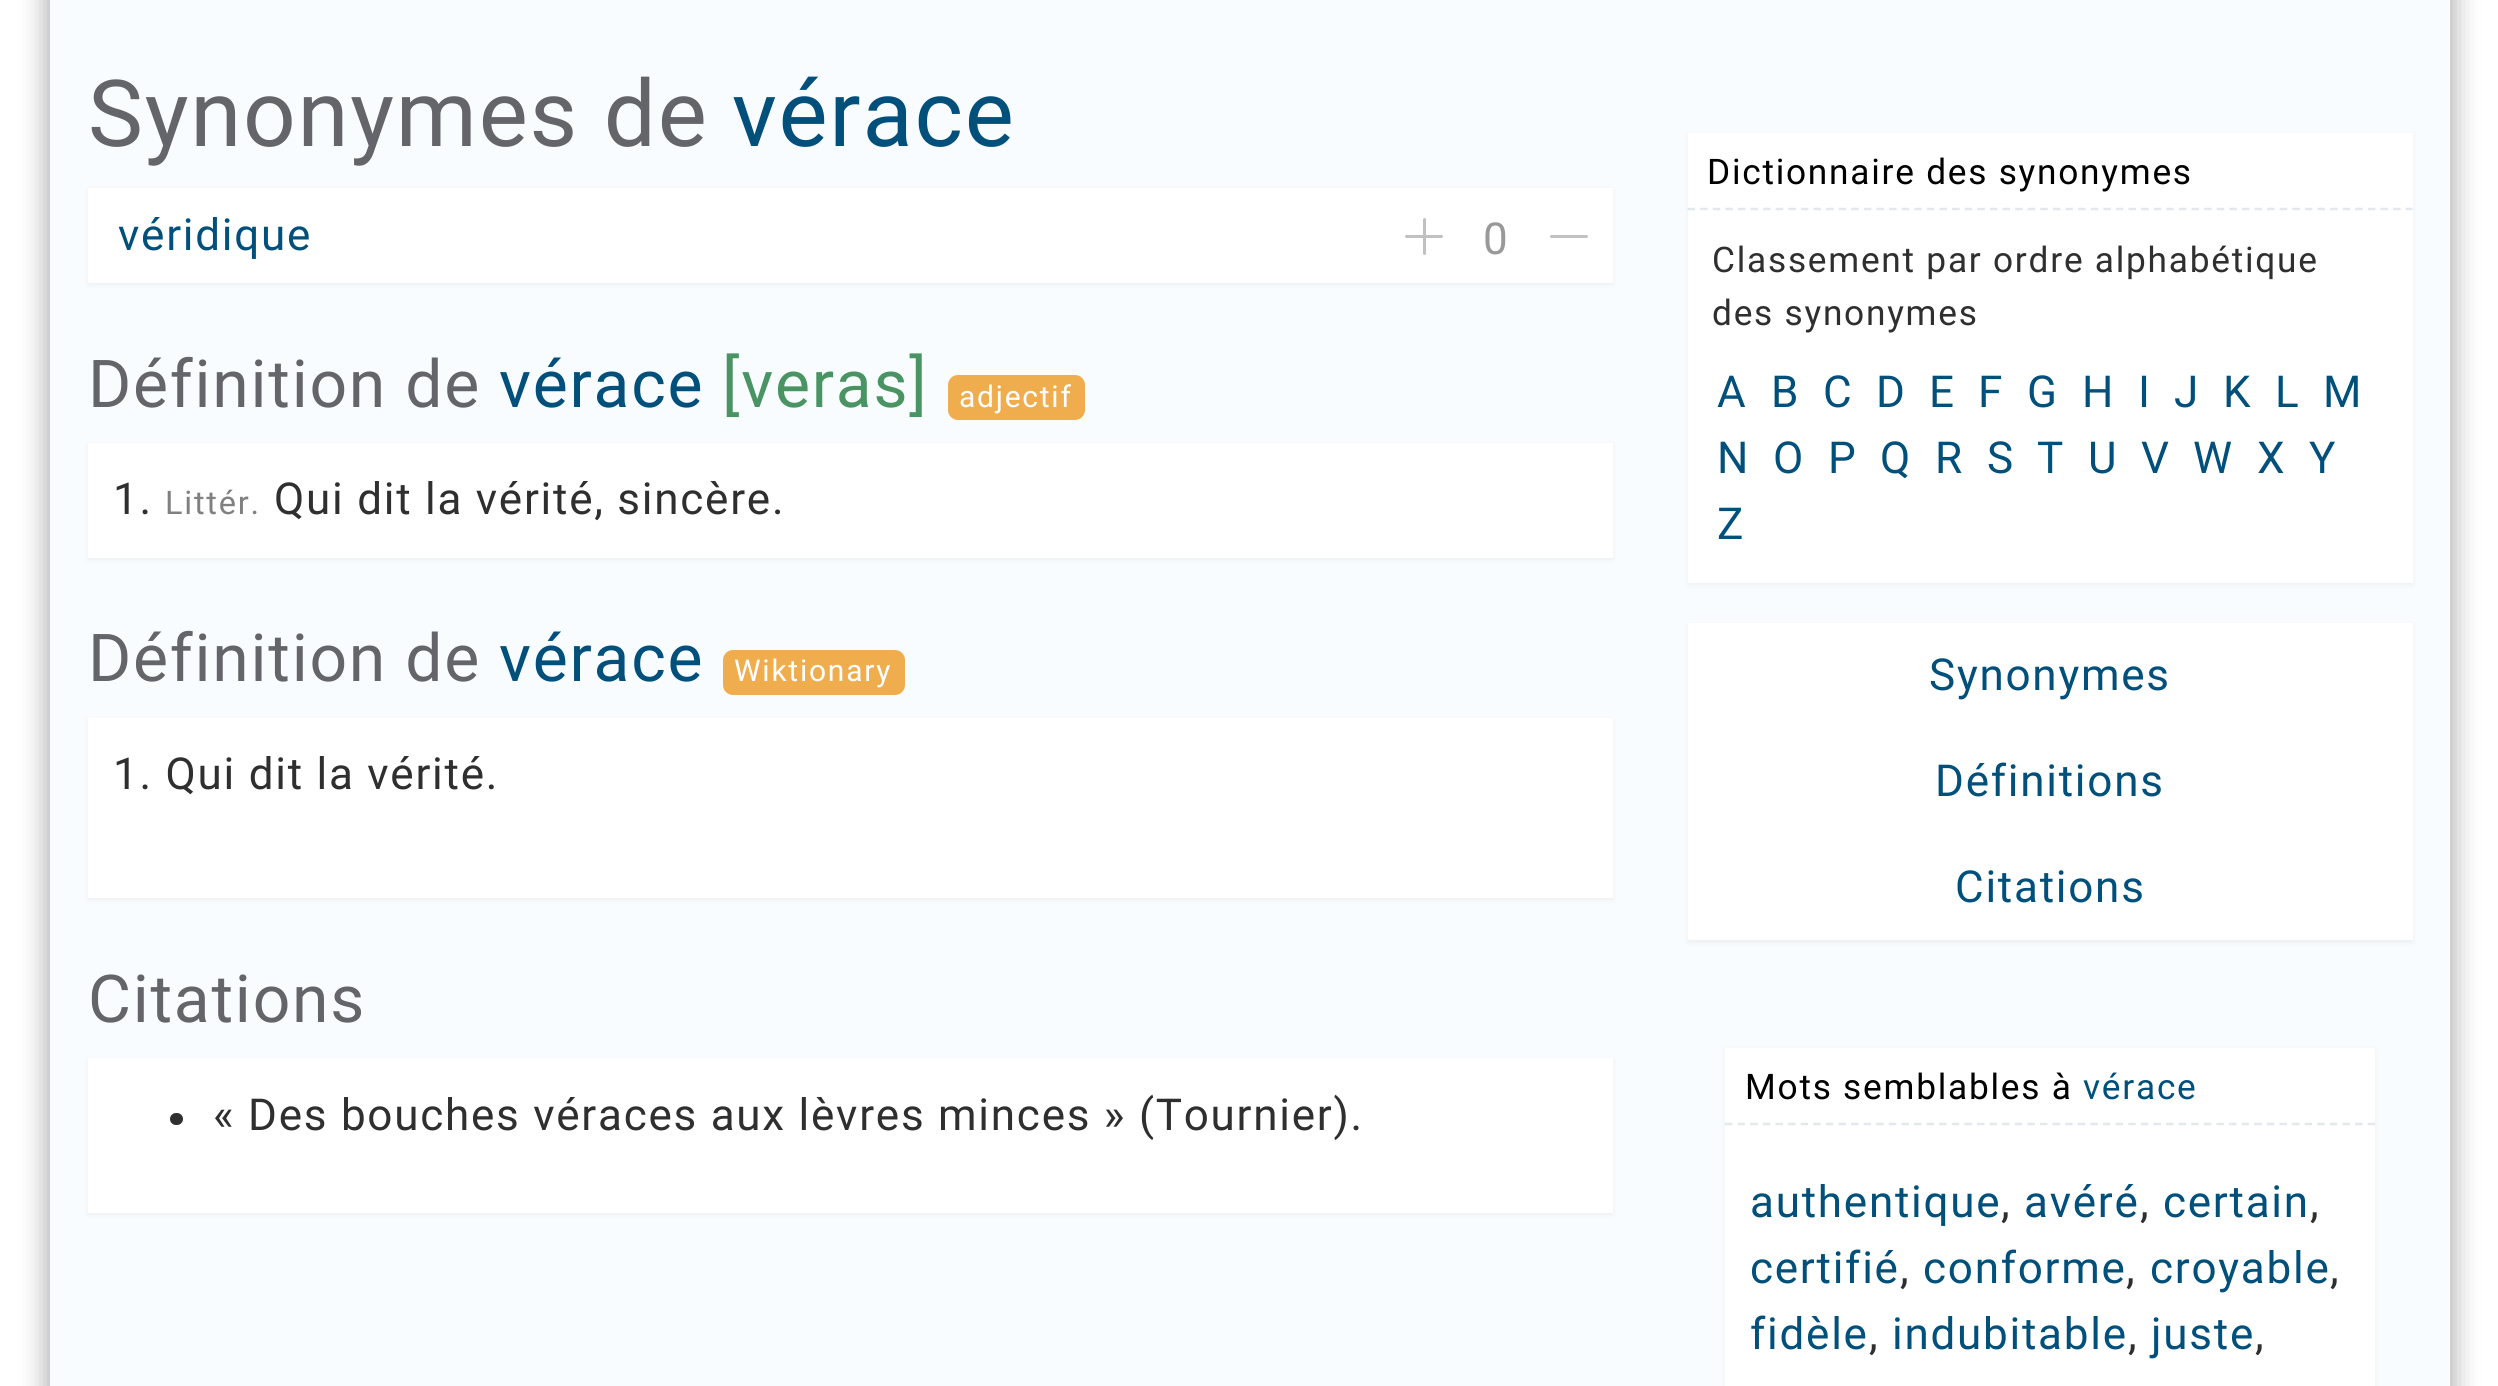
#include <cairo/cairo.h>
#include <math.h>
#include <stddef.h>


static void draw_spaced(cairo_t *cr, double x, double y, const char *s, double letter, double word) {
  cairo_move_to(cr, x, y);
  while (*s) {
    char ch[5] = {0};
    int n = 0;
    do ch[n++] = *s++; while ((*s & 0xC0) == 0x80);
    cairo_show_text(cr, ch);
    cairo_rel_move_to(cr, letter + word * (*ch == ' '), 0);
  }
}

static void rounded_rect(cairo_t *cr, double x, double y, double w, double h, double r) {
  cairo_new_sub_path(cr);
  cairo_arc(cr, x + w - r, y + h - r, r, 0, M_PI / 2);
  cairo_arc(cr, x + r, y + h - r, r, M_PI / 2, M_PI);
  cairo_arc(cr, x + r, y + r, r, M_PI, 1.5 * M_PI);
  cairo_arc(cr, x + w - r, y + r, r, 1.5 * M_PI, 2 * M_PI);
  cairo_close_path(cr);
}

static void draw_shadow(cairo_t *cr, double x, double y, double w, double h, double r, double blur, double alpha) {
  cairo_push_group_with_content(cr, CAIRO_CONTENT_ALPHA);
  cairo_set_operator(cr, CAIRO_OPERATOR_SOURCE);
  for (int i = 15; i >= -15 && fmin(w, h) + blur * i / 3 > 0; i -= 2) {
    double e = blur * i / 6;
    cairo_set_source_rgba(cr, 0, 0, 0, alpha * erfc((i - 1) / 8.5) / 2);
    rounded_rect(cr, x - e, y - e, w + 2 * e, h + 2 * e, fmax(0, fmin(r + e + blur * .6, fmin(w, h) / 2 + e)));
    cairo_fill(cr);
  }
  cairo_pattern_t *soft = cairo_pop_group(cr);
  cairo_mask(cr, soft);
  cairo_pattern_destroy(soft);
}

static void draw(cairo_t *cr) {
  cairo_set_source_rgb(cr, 1, 1, 1);
  cairo_paint(cr);
  cairo_set_source_rgb(cr, 0, 0, 0);
  draw_shadow(cr, 45, -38, 2410, 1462, 0, 12.5, 0.3);
  cairo_set_source_rgb(cr, 249 / 255.0, 252 / 255.0, 1);
  cairo_rectangle(cr, 50, 0, 2400, 1386);
  cairo_fill(cr);
  cairo_set_source_rgb(cr, 0, 0, 0);
  draw_shadow(cr, 88, 190, 1525, 95, 0, 2.5, 0.05);
  cairo_set_source_rgb(cr, 1, 1, 1);
  cairo_rectangle(cr, 88, 188, 1525, 95);
  cairo_fill(cr);
  cairo_set_source_rgb(cr, 193 / 255.0, 193 / 255.0, 193 / 255.0);
  rounded_rect(cr, 1423, 218, 3, 37, 1.5);
  cairo_fill(cr);
  rounded_rect(cr, 1405, 235, 38, 3, 1.5);
  cairo_fill(cr);
  rounded_rect(cr, 1550, 235, 38, 3, 1.5);
  cairo_fill(cr);
  cairo_set_source_rgb(cr, 240 / 255.0, 173 / 255.0, 78 / 255.0);
  rounded_rect(cr, 948, 375, 137, 45, 10);
  cairo_fill(cr);
  cairo_set_source_rgb(cr, 0, 0, 0);
  draw_shadow(cr, 88, 445, 1525, 115, 0, 2.5, 0.05);
  cairo_set_source_rgb(cr, 1, 1, 1);
  cairo_rectangle(cr, 88, 443, 1525, 115);
  cairo_fill(cr);
  cairo_set_source_rgb(cr, 240 / 255.0, 173 / 255.0, 78 / 255.0);
  rounded_rect(cr, 723, 650, 182, 45, 10);
  cairo_fill(cr);
  cairo_set_source_rgb(cr, 0, 0, 0);
  draw_shadow(cr, 88, 720, 1525, 180, 0, 2.5, 0.05);
  cairo_set_source_rgb(cr, 1, 1, 1);
  cairo_rectangle(cr, 88, 718, 1525, 180);
  cairo_fill(cr);
  cairo_set_source_rgb(cr, 0, 0, 0);
  draw_shadow(cr, 88, 1060, 1525, 155, 0, 2.5, 0.05);
  cairo_set_source_rgb(cr, 1, 1, 1);
  cairo_rectangle(cr, 88, 1058, 1525, 155);
  cairo_fill(cr);
  cairo_set_source_rgb(cr, 47 / 255.0, 47 / 255.0, 47 / 255.0);
  rounded_rect(cr, 170, 1113, 13, 12, 6);
  cairo_fill(cr);
  cairo_set_source_rgb(cr, 0, 0, 0);
  draw_shadow(cr, 1688, 135, 725, 450, 0, 2.5, 0.05);
  cairo_set_source_rgb(cr, 1, 1, 1);
  cairo_rectangle(cr, 1688, 133, 725, 450);
  cairo_fill(cr);
  cairo_new_path(cr);
  cairo_move_to(cr, 1687.5, 209);
  cairo_line_to(cr, 2412.5, 209);
  cairo_set_source_rgb(cr, 227 / 255.0, 232 / 255.0, 236 / 255.0);
  cairo_set_line_width(cr, 2.5);
  cairo_set_dash(cr, (double[]){7.5, 5.1}, 2, 0);
  cairo_stroke(cr);
  cairo_set_source_rgb(cr, 0, 0, 0);
  draw_shadow(cr, 1688, 625, 725, 318, 0, 2.5, 0.05);
  cairo_set_source_rgb(cr, 1, 1, 1);
  cairo_rectangle(cr, 1688, 623, 725, 317);
  cairo_fill(cr);
  cairo_set_source_rgb(cr, 0, 0, 0);
  draw_shadow(cr, 1725, 1050, 650, 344, 0, 2.5, 0.05);
  cairo_set_source_rgb(cr, 1, 1, 1);
  cairo_rectangle(cr, 1725, 1048, 650, 338);
  cairo_fill(cr);
  cairo_new_path(cr);
  cairo_move_to(cr, 1725, 1124);
  cairo_line_to(cr, 2375, 1124);
  cairo_set_source_rgb(cr, 227 / 255.0, 232 / 255.0, 236 / 255.0);
  cairo_stroke(cr);
  cairo_select_font_face(cr, "Roboto", CAIRO_FONT_SLANT_NORMAL, CAIRO_FONT_WEIGHT_NORMAL);
  cairo_set_font_size(cr, 92.5);
  cairo_set_source_rgb(cr, 99 / 255.0, 101 / 255.0, 106 / 255.0);
  draw_spaced(cr, 88, 146, "Synonymes de", 1.75, 0);
  cairo_set_source_rgb(cr, 0, 80 / 255.0, 123 / 255.0);
  draw_spaced(cr, 732, 146, "vérace", 1.75, 0);
  cairo_set_font_size(cr, 44);
  draw_spaced(cr, 118, 250, "véridique", 1.75, 0);
  cairo_set_source_rgb(cr, 153 / 255.0, 153 / 255.0, 153 / 255.0);
  draw_spaced(cr, 1483, 254, "0", 1.75, 0);
  cairo_set_font_size(cr, 66);
  cairo_set_source_rgb(cr, 99 / 255.0, 101 / 255.0, 106 / 255.0);
  draw_spaced(cr, 88, 407, "Définition de", 1.75, 0);
  cairo_set_source_rgb(cr, 0, 80 / 255.0, 123 / 255.0);
  draw_spaced(cr, 499, 407, "vérace", 1.75, 0);
  cairo_set_source_rgb(cr, 74 / 255.0, 148 / 255.0, 99 / 255.0);
  draw_spaced(cr, 722, 407, "[veras]", 1.75, 0);
  cairo_set_font_size(cr, 30);
  cairo_set_source_rgb(cr, 1, 1, 1);
  draw_spaced(cr, 959, 407, "adjectif", 1.75, 0);
  cairo_set_font_size(cr, 44);
  cairo_set_source_rgb(cr, 47 / 255.0, 47 / 255.0, 47 / 255.0);
  draw_spaced(cr, 113, 514, "1.", 1.75, 0);
  cairo_set_font_size(cr, 32.5);
  cairo_set_source_rgb(cr, 128 / 255.0, 128 / 255.0, 128 / 255.0);
  draw_spaced(cr, 165, 514, "Littér.", 1.75, 0);
  cairo_set_font_size(cr, 44);
  cairo_set_source_rgb(cr, 47 / 255.0, 47 / 255.0, 47 / 255.0);
  draw_spaced(cr, 274, 514, "Qui dit la vérité, sincère.", 1.75, 0);
  cairo_set_font_size(cr, 66);
  cairo_set_source_rgb(cr, 99 / 255.0, 101 / 255.0, 106 / 255.0);
  draw_spaced(cr, 88, 681, "Définition de", 1.75, 0);
  cairo_set_source_rgb(cr, 0, 80 / 255.0, 123 / 255.0);
  draw_spaced(cr, 499, 681, "vérace", 1.75, 0);
  cairo_set_font_size(cr, 30);
  cairo_set_source_rgb(cr, 1, 1, 1);
  draw_spaced(cr, 734, 681, "Wiktionary", 1.75, 0);
  cairo_set_font_size(cr, 44);
  cairo_set_source_rgb(cr, 47 / 255.0, 47 / 255.0, 47 / 255.0);
  draw_spaced(cr, 113, 789, "1. Qui dit la vérité.", 1.75, 0);
  cairo_set_font_size(cr, 66);
  cairo_set_source_rgb(cr, 99 / 255.0, 101 / 255.0, 106 / 255.0);
  draw_spaced(cr, 88, 1022, "Citations", 1.75, 0);
  cairo_set_font_size(cr, 44);
  cairo_set_source_rgb(cr, 47 / 255.0, 47 / 255.0, 47 / 255.0);
  draw_spaced(cr, 213, 1130, "« Des bouches véraces aux lèvres minces » (Tournier).", 1.75, 0);
  cairo_set_font_size(cr, 35.25);
  cairo_set_source_rgb(cr, 0, 0, 0);
  draw_spaced(cr, 1707, 184, "Dictionnaire des synonymes", 1.75, 0);
  cairo_set_source_rgb(cr, 47 / 255.0, 47 / 255.0, 47 / 255.0);
  draw_spaced(cr, 1712, 272, "Classement par ordre alphabétique", 1.75, 0);
  draw_spaced(cr, 1712, 325, "des synonymes", 1.75, 0);
  cairo_set_font_size(cr, 44);
  cairo_set_source_rgb(cr, 0, 80 / 255.0, 123 / 255.0);
  draw_spaced(cr, 1717, 407, "A", 1.75, 0);
  draw_spaced(cr, 1771, 407, "B", 1.75, 0);
  draw_spaced(cr, 1823, 407, "C", 1.75, 0);
  draw_spaced(cr, 1876, 407, "D", 1.75, 0);
  draw_spaced(cr, 1929, 407, "E", 1.75, 0);
  draw_spaced(cr, 1978, 407, "F", 1.75, 0);
  draw_spaced(cr, 2027, 407, "G", 1.75, 0);
  draw_spaced(cr, 2082, 407, "H", 1.75, 0);
  draw_spaced(cr, 2138, 407, "I", 1.75, 0);
  draw_spaced(cr, 2174, 407, "J", 1.75, 0);
  draw_spaced(cr, 2223, 407, "K", 1.75, 0);
  draw_spaced(cr, 2275, 407, "L", 1.75, 0);
  draw_spaced(cr, 2323, 407, "M", 1.75, 0);
  draw_spaced(cr, 1717, 473, "N", 1.75, 0);
  draw_spaced(cr, 1773, 473, "O", 1.75, 0);
  draw_spaced(cr, 1828, 473, "P", 1.75, 0);
  draw_spaced(cr, 1880, 473, "Q", 1.75, 0);
  draw_spaced(cr, 1935, 473, "R", 1.75, 0);
  draw_spaced(cr, 1987, 473, "S", 1.75, 0);
  draw_spaced(cr, 2037, 473, "T", 1.75, 0);
  draw_spaced(cr, 2088, 473, "U", 1.75, 0);
  draw_spaced(cr, 2141, 473, "V", 1.75, 0);
  draw_spaced(cr, 2193, 473, "W", 1.75, 0);
  draw_spaced(cr, 2257, 473, "X", 1.75, 0);
  draw_spaced(cr, 2309, 473, "Y", 1.75, 0);
  draw_spaced(cr, 1717, 539, "Z", 1.75, 0);
  draw_spaced(cr, 1929, 690, "Synonymes", 1.75, 0);
  draw_spaced(cr, 1935, 796, "Définitions", 1.75, 0);
  draw_spaced(cr, 1955, 902, "Citations", 1.75, 0);
  cairo_set_font_size(cr, 35.25);
  cairo_set_source_rgb(cr, 0, 0, 0);
  draw_spaced(cr, 1745, 1099, "Mots semblables à", 1.75, 0);
  cairo_set_source_rgb(cr, 0, 80 / 255.0, 123 / 255.0);
  draw_spaced(cr, 2083, 1099, "vérace", 1.75, 0);
  cairo_set_font_size(cr, 44);
  draw_spaced(cr, 1750, 1217, "authentique", 1.75, 0);
  cairo_set_source_rgb(cr, 47 / 255.0, 47 / 255.0, 47 / 255.0);
  draw_spaced(cr, 2001, 1217, ",", 1.75, 0);
  cairo_set_source_rgb(cr, 0, 80 / 255.0, 123 / 255.0);
  draw_spaced(cr, 2024, 1217, "avéré", 1.75, 0);
  cairo_set_source_rgb(cr, 47 / 255.0, 47 / 255.0, 47 / 255.0);
  draw_spaced(cr, 2140, 1217, ",", 1.75, 0);
  cairo_set_source_rgb(cr, 0, 80 / 255.0, 123 / 255.0);
  draw_spaced(cr, 2163, 1217, "certain", 1.75, 0);
  cairo_set_source_rgb(cr, 47 / 255.0, 47 / 255.0, 47 / 255.0);
  draw_spaced(cr, 2310, 1217, ",", 1.75, 0);
  cairo_set_source_rgb(cr, 0, 80 / 255.0, 123 / 255.0);
  draw_spaced(cr, 1750, 1283, "certifié", 1.75, 0);
  cairo_set_source_rgb(cr, 47 / 255.0, 47 / 255.0, 47 / 255.0);
  draw_spaced(cr, 1900, 1283, ",", 1.75, 0);
  cairo_set_source_rgb(cr, 0, 80 / 255.0, 123 / 255.0);
  draw_spaced(cr, 1923, 1283, "conforme", 1.75, 0);
  cairo_set_source_rgb(cr, 47 / 255.0, 47 / 255.0, 47 / 255.0);
  draw_spaced(cr, 2126, 1283, ",", 1.75, 0);
  cairo_set_source_rgb(cr, 0, 80 / 255.0, 123 / 255.0);
  draw_spaced(cr, 2150, 1283, "croyable", 1.75, 0);
  cairo_set_source_rgb(cr, 47 / 255.0, 47 / 255.0, 47 / 255.0);
  draw_spaced(cr, 2330, 1283, ",", 1.75, 0);
  cairo_set_source_rgb(cr, 0, 80 / 255.0, 123 / 255.0);
  draw_spaced(cr, 1750, 1349, "fidèle", 1.75, 0);
  cairo_set_source_rgb(cr, 47 / 255.0, 47 / 255.0, 47 / 255.0);
  draw_spaced(cr, 1869, 1349, ",", 1.75, 0);
  cairo_set_source_rgb(cr, 0, 80 / 255.0, 123 / 255.0);
  draw_spaced(cr, 1892, 1349, "indubitable", 1.75, 0);
  cairo_set_source_rgb(cr, 47 / 255.0, 47 / 255.0, 47 / 255.0);
  draw_spaced(cr, 2128, 1349, ",", 1.75, 0);
  cairo_set_source_rgb(cr, 0, 80 / 255.0, 123 / 255.0);
  draw_spaced(cr, 2151, 1349, "juste", 1.75, 0);
  cairo_set_source_rgb(cr, 47 / 255.0, 47 / 255.0, 47 / 255.0);
  draw_spaced(cr, 2255, 1349, ",", 1.75, 0);
}

int main(void) {
  cairo_surface_t *surface = cairo_image_surface_create(CAIRO_FORMAT_RGB24, 2498, 1386);
  cairo_t *cr = cairo_create(surface);
  cairo_font_options_t *options = cairo_font_options_create();
  cairo_font_options_set_hint_metrics(options, CAIRO_HINT_METRICS_OFF);
  cairo_font_options_set_hint_style(options, CAIRO_HINT_STYLE_NONE);
  cairo_set_font_options(cr, options);
  cairo_set_miter_limit(cr, 4);
  draw(cr);
  cairo_surface_write_to_png(surface, "out.png");
  cairo_font_options_destroy(options);
  cairo_destroy(cr);
  cairo_surface_destroy(surface);
  return 0;
}
